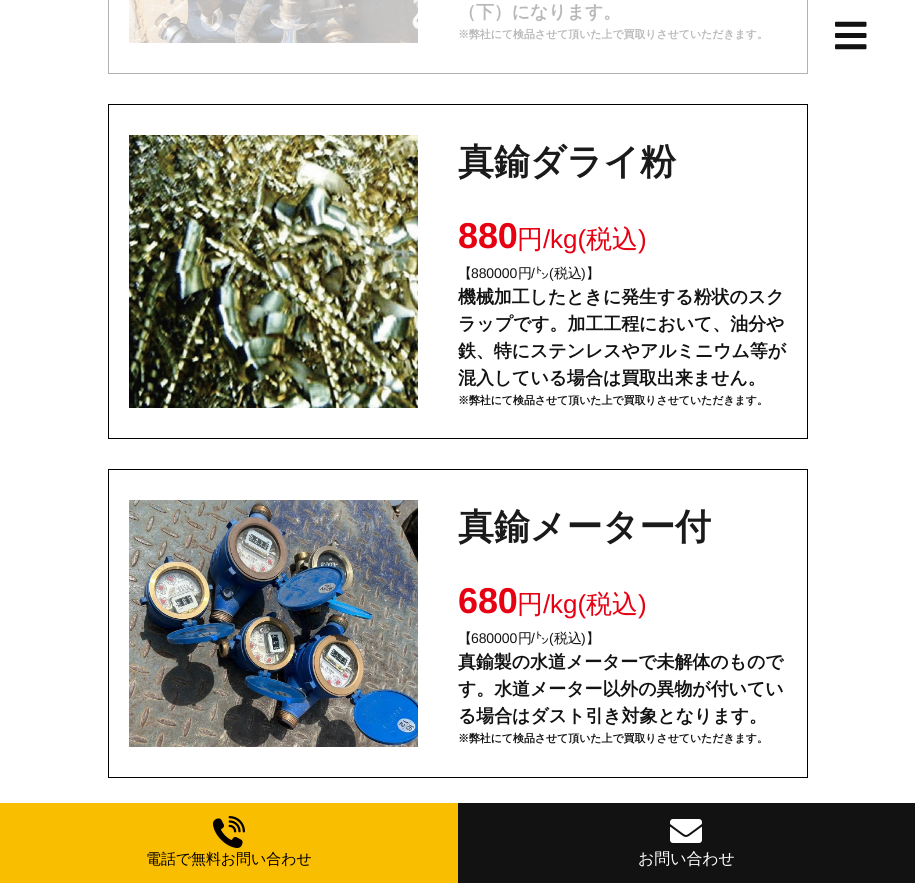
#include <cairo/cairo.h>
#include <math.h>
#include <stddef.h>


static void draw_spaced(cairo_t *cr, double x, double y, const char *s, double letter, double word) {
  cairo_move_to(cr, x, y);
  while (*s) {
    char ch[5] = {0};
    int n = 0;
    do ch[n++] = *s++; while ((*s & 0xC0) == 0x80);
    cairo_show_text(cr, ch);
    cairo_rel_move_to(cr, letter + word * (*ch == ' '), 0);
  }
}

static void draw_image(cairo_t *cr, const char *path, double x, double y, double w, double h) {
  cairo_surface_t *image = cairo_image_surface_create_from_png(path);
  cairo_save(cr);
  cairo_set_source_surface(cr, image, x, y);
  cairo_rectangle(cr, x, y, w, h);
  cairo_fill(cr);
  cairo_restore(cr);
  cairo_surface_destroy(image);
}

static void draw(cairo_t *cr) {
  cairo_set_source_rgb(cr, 1, 1, 1);
  cairo_paint(cr);
  cairo_rectangle(cr, 108.5, -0.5, 699, 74);
  cairo_set_source_rgb(cr, 179 / 255.0, 179 / 255.0, 179 / 255.0);
  cairo_set_line_width(cr, 1);
  cairo_stroke(cr);
  draw_image(cr, "images/1.png", 129, 0, 289, 43);
  cairo_rectangle(cr, 108.5, 104.5, 699, 334);
  cairo_set_source_rgb(cr, 0, 0, 0);
  cairo_stroke(cr);
  draw_image(cr, "images/2.png", 129, 135, 289, 273);
  cairo_rectangle(cr, 108.5, 469.5, 699, 308);
  cairo_stroke(cr);
  draw_image(cr, "images/3.png", 129, 500, 289, 247);
  draw_image(cr, "images/4.png", 835, 21, 32, 29);
  cairo_set_source_rgb(cr, 250 / 255.0, 190 / 255.0, 0);
  cairo_rectangle(cr, 0, 803, 458, 80);
  cairo_fill(cr);
  draw_image(cr, "images/5.png", 213, 816, 32, 32);
  cairo_set_source_rgb(cr, 18 / 255.0, 18 / 255.0, 18 / 255.0);
  cairo_rectangle(cr, 458, 803, 457, 80);
  cairo_fill(cr);
  draw_image(cr, "images/6.png", 670, 819, 32, 24);
  cairo_select_font_face(cr, "WenQuanYi Zen Hei", CAIRO_FONT_SLANT_NORMAL, CAIRO_FONT_WEIGHT_BOLD);
  cairo_set_font_size(cr, 18);
  cairo_set_source_rgb(cr, 184 / 255.0, 184 / 255.0, 184 / 255.0);
  draw_spaced(cr, 458, 18, "（下）になります。", -0.1, 0);
  cairo_set_font_size(cr, 11);
  draw_spaced(cr, 458, 38, "※弊社にて検品させて頂いた上で買取りさせていただきます。", -0.1, 0);
  cairo_set_font_size(cr, 36);
  cairo_set_source_rgb(cr, 26 / 255.0, 26 / 255.0, 26 / 255.0);
  draw_spaced(cr, 458, 174, "真鍮ダライ粉", -0.1, 0);
  cairo_select_font_face(cr, "Liberation Sans", CAIRO_FONT_SLANT_NORMAL, CAIRO_FONT_WEIGHT_BOLD);
  cairo_set_source_rgb(cr, 230 / 255.0, 0, 18 / 255.0);
  draw_spaced(cr, 458, 248, "880", -0.1, 0);
  cairo_select_font_face(cr, "WenQuanYi Zen Hei Medium", CAIRO_FONT_SLANT_NORMAL, CAIRO_FONT_WEIGHT_NORMAL);
  cairo_set_font_size(cr, 26);
  draw_spaced(cr, 517, 248, "円", -0.1, 0);
  cairo_select_font_face(cr, "Liberation Sans", CAIRO_FONT_SLANT_NORMAL, CAIRO_FONT_WEIGHT_NORMAL);
  draw_spaced(cr, 543, 248, "/kg(", -0.1, 0);
  cairo_select_font_face(cr, "WenQuanYi Zen Hei Medium", CAIRO_FONT_SLANT_NORMAL, CAIRO_FONT_WEIGHT_NORMAL);
  draw_spaced(cr, 586, 248, "税込", -0.1, 0);
  cairo_select_font_face(cr, "Liberation Sans", CAIRO_FONT_SLANT_NORMAL, CAIRO_FONT_WEIGHT_NORMAL);
  draw_spaced(cr, 638, 248, ")", -0.1, 0);
  cairo_select_font_face(cr, "WenQuanYi Zen Hei Medium", CAIRO_FONT_SLANT_NORMAL, CAIRO_FONT_WEIGHT_NORMAL);
  cairo_set_font_size(cr, 14);
  cairo_set_source_rgb(cr, 18 / 255.0, 18 / 255.0, 18 / 255.0);
  draw_spaced(cr, 458, 278, "【", -0.1, 0);
  cairo_select_font_face(cr, "Liberation Sans", CAIRO_FONT_SLANT_NORMAL, CAIRO_FONT_WEIGHT_NORMAL);
  draw_spaced(cr, 471, 278, "880000", -0.1, 0);
  cairo_select_font_face(cr, "WenQuanYi Zen Hei Medium", CAIRO_FONT_SLANT_NORMAL, CAIRO_FONT_WEIGHT_NORMAL);
  draw_spaced(cr, 518, 278, "円", -0.1, 0);
  cairo_select_font_face(cr, "Liberation Sans", CAIRO_FONT_SLANT_NORMAL, CAIRO_FONT_WEIGHT_NORMAL);
  draw_spaced(cr, 531, 278, "/", -0.1, 0);
  cairo_select_font_face(cr, "IPAPGothic", CAIRO_FONT_SLANT_NORMAL, CAIRO_FONT_WEIGHT_NORMAL);
  draw_spaced(cr, 535, 278, "㌧", -0.1, 0);
  cairo_select_font_face(cr, "Liberation Sans", CAIRO_FONT_SLANT_NORMAL, CAIRO_FONT_WEIGHT_NORMAL);
  draw_spaced(cr, 549, 278, "(", -0.1, 0);
  cairo_select_font_face(cr, "WenQuanYi Zen Hei Medium", CAIRO_FONT_SLANT_NORMAL, CAIRO_FONT_WEIGHT_NORMAL);
  draw_spaced(cr, 554, 278, "税込", -0.1, 0);
  cairo_select_font_face(cr, "Liberation Sans", CAIRO_FONT_SLANT_NORMAL, CAIRO_FONT_WEIGHT_NORMAL);
  draw_spaced(cr, 581, 278, ")", -0.1, 0);
  cairo_select_font_face(cr, "WenQuanYi Zen Hei Medium", CAIRO_FONT_SLANT_NORMAL, CAIRO_FONT_WEIGHT_NORMAL);
  draw_spaced(cr, 586, 278, "】", -0.1, 0);
  cairo_select_font_face(cr, "WenQuanYi Zen Hei", CAIRO_FONT_SLANT_NORMAL, CAIRO_FONT_WEIGHT_BOLD);
  cairo_set_font_size(cr, 18);
  draw_spaced(cr, 458, 303, "機械加工したときに発生する粉状のスク", -0.1, 0);
  draw_spaced(cr, 458, 330, "ラップです。加工工程において、油分や", -0.1, 0);
  draw_spaced(cr, 458, 357, "鉄、特にステンレスやアルミニウム等が", -0.1, 0);
  draw_spaced(cr, 458, 384, "混入している場合は買取出来ません。", -0.1, 0);
  cairo_set_font_size(cr, 11);
  draw_spaced(cr, 458, 404, "※弊社にて検品させて頂いた上で買取りさせていただきます。", -0.1, 0);
  cairo_set_font_size(cr, 36);
  cairo_set_source_rgb(cr, 26 / 255.0, 26 / 255.0, 26 / 255.0);
  draw_spaced(cr, 458, 539, "真鍮メーター付", -0.1, 0);
  cairo_select_font_face(cr, "Liberation Sans", CAIRO_FONT_SLANT_NORMAL, CAIRO_FONT_WEIGHT_BOLD);
  cairo_set_source_rgb(cr, 230 / 255.0, 0, 18 / 255.0);
  draw_spaced(cr, 458, 613, "680", -0.1, 0);
  cairo_select_font_face(cr, "WenQuanYi Zen Hei Medium", CAIRO_FONT_SLANT_NORMAL, CAIRO_FONT_WEIGHT_NORMAL);
  cairo_set_font_size(cr, 26);
  draw_spaced(cr, 517, 613, "円", -0.1, 0);
  cairo_select_font_face(cr, "Liberation Sans", CAIRO_FONT_SLANT_NORMAL, CAIRO_FONT_WEIGHT_NORMAL);
  draw_spaced(cr, 543, 613, "/kg(", -0.1, 0);
  cairo_select_font_face(cr, "WenQuanYi Zen Hei Medium", CAIRO_FONT_SLANT_NORMAL, CAIRO_FONT_WEIGHT_NORMAL);
  draw_spaced(cr, 586, 613, "税込", -0.1, 0);
  cairo_select_font_face(cr, "Liberation Sans", CAIRO_FONT_SLANT_NORMAL, CAIRO_FONT_WEIGHT_NORMAL);
  draw_spaced(cr, 638, 613, ")", -0.1, 0);
  cairo_select_font_face(cr, "WenQuanYi Zen Hei Medium", CAIRO_FONT_SLANT_NORMAL, CAIRO_FONT_WEIGHT_NORMAL);
  cairo_set_font_size(cr, 14);
  cairo_set_source_rgb(cr, 18 / 255.0, 18 / 255.0, 18 / 255.0);
  draw_spaced(cr, 458, 643, "【", -0.1, 0);
  cairo_select_font_face(cr, "Liberation Sans", CAIRO_FONT_SLANT_NORMAL, CAIRO_FONT_WEIGHT_NORMAL);
  draw_spaced(cr, 471, 643, "680000", -0.1, 0);
  cairo_select_font_face(cr, "WenQuanYi Zen Hei Medium", CAIRO_FONT_SLANT_NORMAL, CAIRO_FONT_WEIGHT_NORMAL);
  draw_spaced(cr, 518, 643, "円", -0.1, 0);
  cairo_select_font_face(cr, "Liberation Sans", CAIRO_FONT_SLANT_NORMAL, CAIRO_FONT_WEIGHT_NORMAL);
  draw_spaced(cr, 531, 643, "/", -0.1, 0);
  cairo_select_font_face(cr, "IPAPGothic", CAIRO_FONT_SLANT_NORMAL, CAIRO_FONT_WEIGHT_NORMAL);
  draw_spaced(cr, 535, 643, "㌧", -0.1, 0);
  cairo_select_font_face(cr, "Liberation Sans", CAIRO_FONT_SLANT_NORMAL, CAIRO_FONT_WEIGHT_NORMAL);
  draw_spaced(cr, 549, 643, "(", -0.1, 0);
  cairo_select_font_face(cr, "WenQuanYi Zen Hei Medium", CAIRO_FONT_SLANT_NORMAL, CAIRO_FONT_WEIGHT_NORMAL);
  draw_spaced(cr, 554, 643, "税込", -0.1, 0);
  cairo_select_font_face(cr, "Liberation Sans", CAIRO_FONT_SLANT_NORMAL, CAIRO_FONT_WEIGHT_NORMAL);
  draw_spaced(cr, 581, 643, ")", -0.1, 0);
  cairo_select_font_face(cr, "WenQuanYi Zen Hei Medium", CAIRO_FONT_SLANT_NORMAL, CAIRO_FONT_WEIGHT_NORMAL);
  draw_spaced(cr, 586, 643, "】", -0.1, 0);
  cairo_select_font_face(cr, "WenQuanYi Zen Hei", CAIRO_FONT_SLANT_NORMAL, CAIRO_FONT_WEIGHT_BOLD);
  cairo_set_font_size(cr, 18);
  draw_spaced(cr, 458, 668, "真鍮製の水道メーターで未解体のもので", -0.1, 0);
  draw_spaced(cr, 458, 695, "す。水道メーター以外の異物が付いてい", -0.1, 0);
  draw_spaced(cr, 458, 722, "る場合はダスト引き対象となります。", -0.1, 0);
  cairo_set_font_size(cr, 11);
  draw_spaced(cr, 458, 742, "※弊社にて検品させて頂いた上で買取りさせていただきます。", -0.1, 0);
  cairo_select_font_face(cr, "WenQuanYi Zen Hei Medium", CAIRO_FONT_SLANT_NORMAL, CAIRO_FONT_WEIGHT_NORMAL);
  cairo_set_font_size(cr, 15);
  cairo_set_source_rgb(cr, 0, 0, 0);
  draw_spaced(cr, 146, 864, "電話で無料お問い合わせ", -0.1, 0);
  cairo_set_font_size(cr, 16);
  cairo_set_source_rgb(cr, 1, 1, 1);
  draw_spaced(cr, 638, 864, "お問い合わせ", -0.1, 0);
}

int main(void) {
  cairo_surface_t *surface = cairo_image_surface_create(CAIRO_FORMAT_RGB24, 915, 883);
  cairo_t *cr = cairo_create(surface);
  cairo_font_options_t *options = cairo_font_options_create();
  cairo_font_options_set_hint_metrics(options, CAIRO_HINT_METRICS_OFF);
  cairo_font_options_set_hint_style(options, CAIRO_HINT_STYLE_NONE);
  cairo_set_font_options(cr, options);
  cairo_set_miter_limit(cr, 4);
  draw(cr);
  cairo_surface_write_to_png(surface, "out.png");
  cairo_font_options_destroy(options);
  cairo_destroy(cr);
  cairo_surface_destroy(surface);
  return 0;
}
